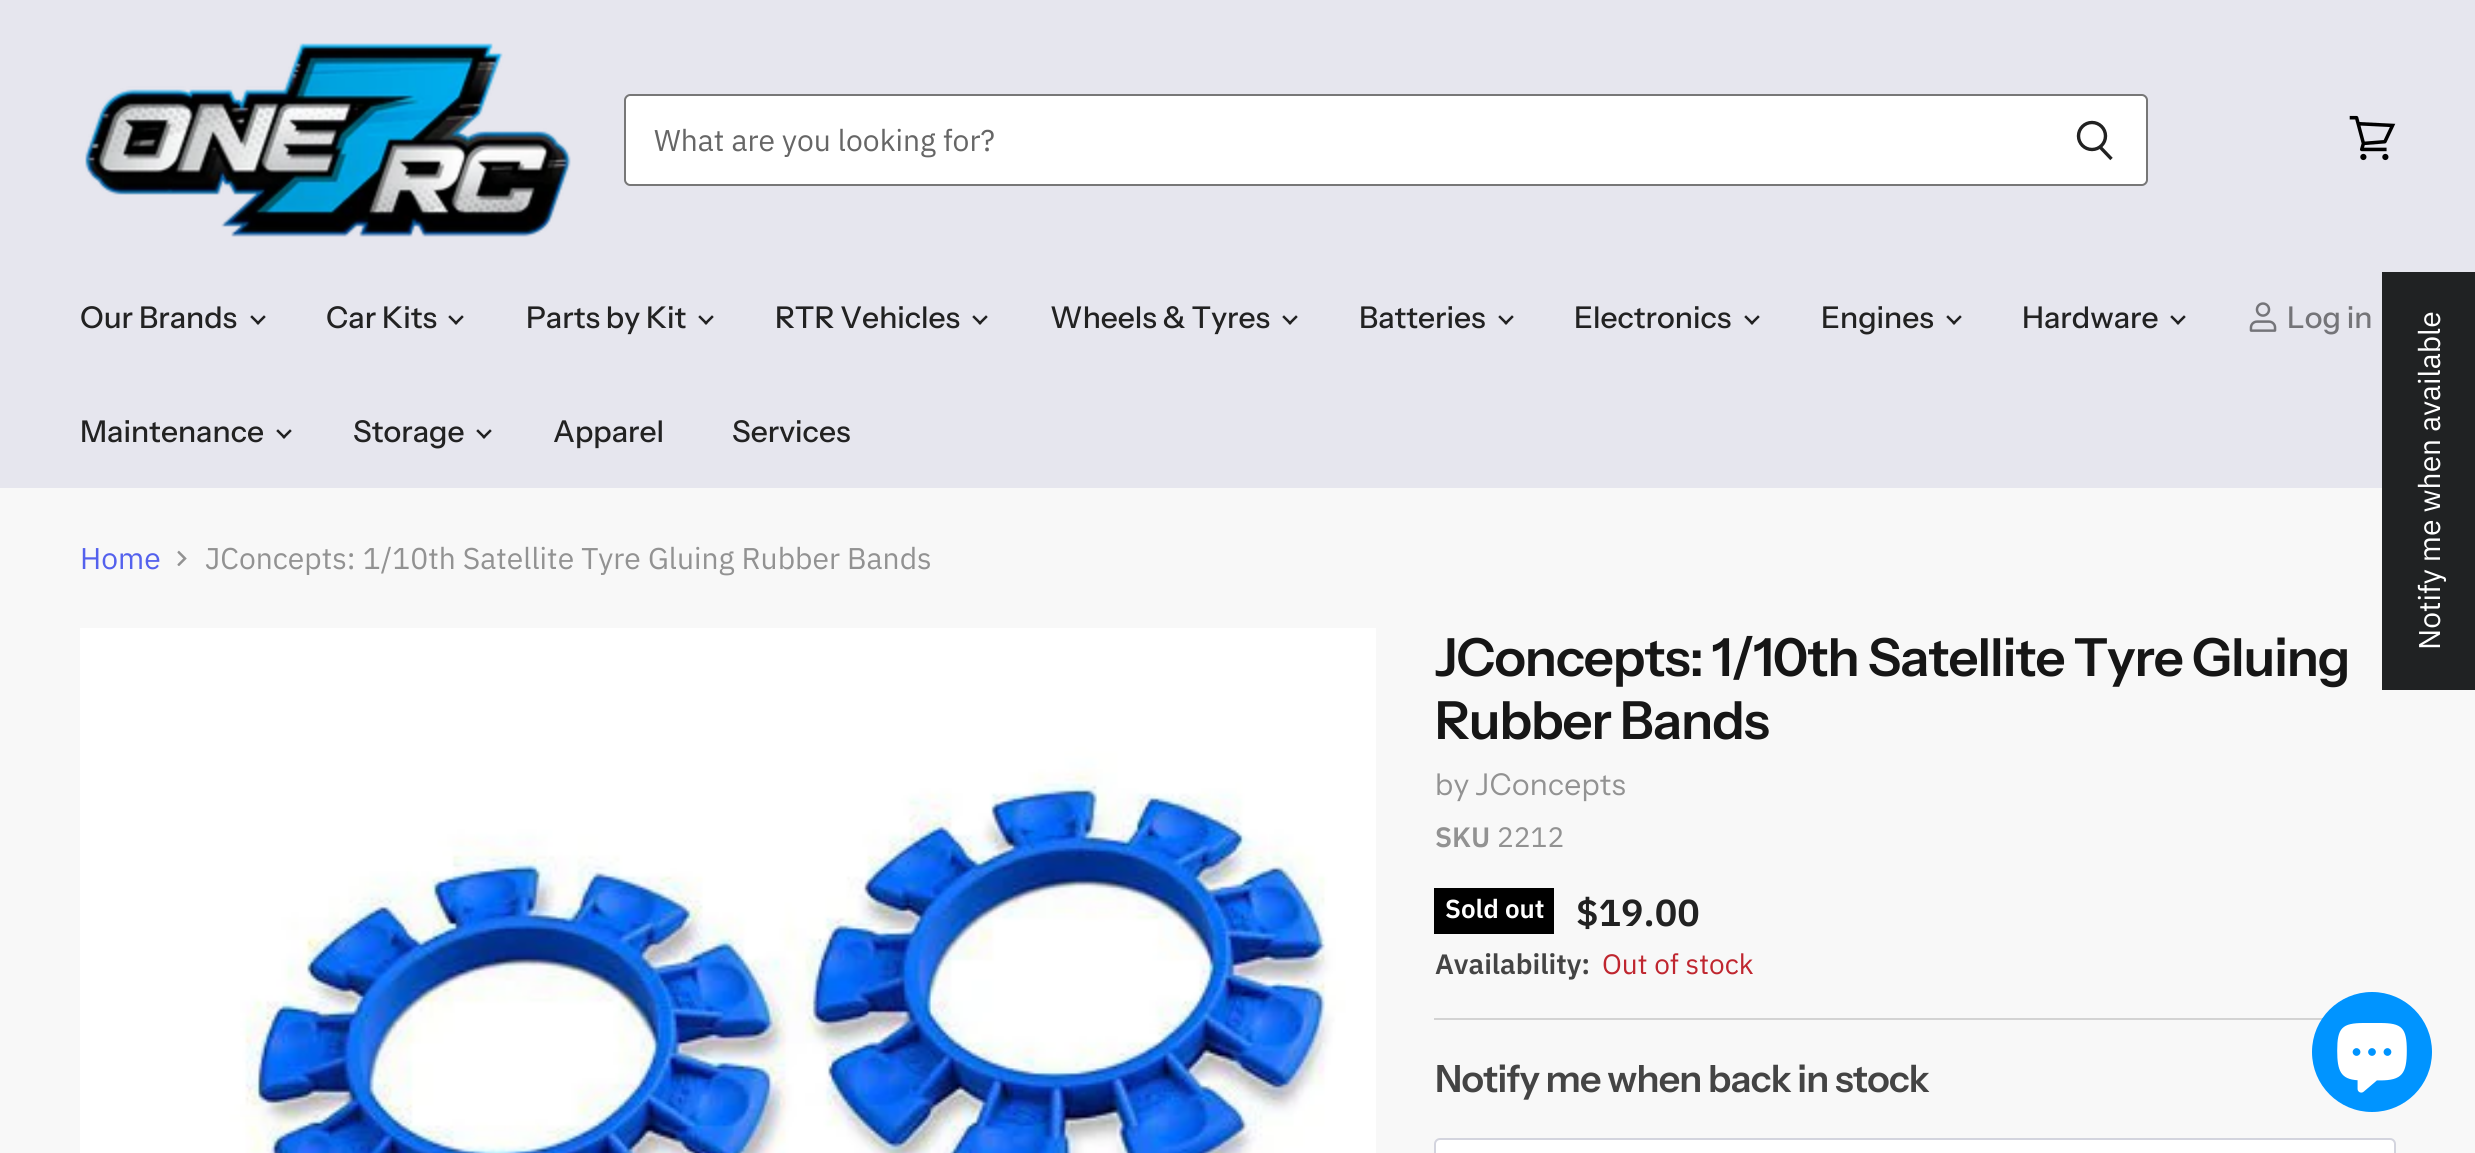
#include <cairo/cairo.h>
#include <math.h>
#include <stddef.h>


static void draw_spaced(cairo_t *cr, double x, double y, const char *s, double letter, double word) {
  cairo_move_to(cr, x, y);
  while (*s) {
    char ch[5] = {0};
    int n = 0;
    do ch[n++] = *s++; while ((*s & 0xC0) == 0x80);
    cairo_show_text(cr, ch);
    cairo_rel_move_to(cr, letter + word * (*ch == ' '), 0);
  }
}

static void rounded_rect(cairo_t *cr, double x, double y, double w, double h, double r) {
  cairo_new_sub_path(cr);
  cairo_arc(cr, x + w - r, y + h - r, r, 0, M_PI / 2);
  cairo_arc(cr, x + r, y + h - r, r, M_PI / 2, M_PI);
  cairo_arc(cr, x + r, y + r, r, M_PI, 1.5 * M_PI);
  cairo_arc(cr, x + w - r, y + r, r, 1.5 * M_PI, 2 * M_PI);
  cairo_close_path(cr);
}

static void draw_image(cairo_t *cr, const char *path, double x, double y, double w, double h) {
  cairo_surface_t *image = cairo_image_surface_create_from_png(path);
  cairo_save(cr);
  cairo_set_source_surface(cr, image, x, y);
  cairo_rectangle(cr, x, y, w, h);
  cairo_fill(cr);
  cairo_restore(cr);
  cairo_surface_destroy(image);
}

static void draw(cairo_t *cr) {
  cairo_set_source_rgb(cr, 248 / 255.0, 248 / 255.0, 248 / 255.0);
  cairo_paint(cr);
  cairo_set_source_rgb(cr, 230 / 255.0, 230 / 255.0, 238 / 255.0);
  cairo_rectangle(cr, 0, 0, 2475, 488);
  cairo_fill(cr);
  draw_image(cr, "images/1.png", 85, 43, 486, 194);
  cairo_set_source_rgb(cr, 1, 1, 1);
  cairo_new_path(cr);
  cairo_move_to(cr, 630, 96);
  cairo_line_to(cr, 2042, 96);
  cairo_line_to(cr, 2042, 184);
  cairo_line_to(cr, 630, 184);
  cairo_curve_to(cr, 628, 184, 626, 182, 626, 180);
  cairo_line_to(cr, 626, 100);
  cairo_curve_to(cr, 626, 98, 628, 96, 630, 96);
  cairo_close_path(cr);
  cairo_fill(cr);
  cairo_set_source_rgb(cr, 119 / 255.0, 119 / 255.0, 119 / 255.0);
  cairo_set_fill_rule(cr, CAIRO_FILL_RULE_EVEN_ODD);
  cairo_new_path(cr);
  cairo_move_to(cr, 630, 94);
  cairo_line_to(cr, 2042, 94);
  cairo_line_to(cr, 2042, 186);
  cairo_line_to(cr, 630, 186);
  cairo_curve_to(cr, 627, 186, 624, 183, 624, 180);
  cairo_line_to(cr, 624, 100);
  cairo_curve_to(cr, 624, 97, 627, 94, 630, 94);
  cairo_close_path(cr);
  cairo_move_to(cr, 630, 96);
  cairo_line_to(cr, 2042, 96);
  cairo_line_to(cr, 2042, 184);
  cairo_line_to(cr, 630, 184);
  cairo_curve_to(cr, 628, 184, 626, 182, 626, 180);
  cairo_line_to(cr, 626, 100);
  cairo_curve_to(cr, 626, 98, 628, 96, 630, 96);
  cairo_close_path(cr);
  cairo_fill(cr);
  cairo_set_source_rgb(cr, 1, 1, 1);
  cairo_new_path(cr);
  cairo_move_to(cr, 2042, 96);
  cairo_line_to(cr, 2142, 96);
  cairo_curve_to(cr, 2144, 96, 2146, 98, 2146, 100);
  cairo_line_to(cr, 2146, 180);
  cairo_curve_to(cr, 2146, 182, 2144, 184, 2142, 184);
  cairo_line_to(cr, 2042, 184);
  cairo_close_path(cr);
  cairo_fill(cr);
  cairo_set_source_rgb(cr, 119 / 255.0, 119 / 255.0, 119 / 255.0);
  cairo_new_path(cr);
  cairo_move_to(cr, 2042, 94);
  cairo_line_to(cr, 2142, 94);
  cairo_curve_to(cr, 2145, 94, 2148, 97, 2148, 100);
  cairo_line_to(cr, 2148, 180);
  cairo_curve_to(cr, 2148, 183, 2145, 186, 2142, 186);
  cairo_line_to(cr, 2042, 186);
  cairo_close_path(cr);
  cairo_move_to(cr, 2042, 96);
  cairo_line_to(cr, 2142, 96);
  cairo_curve_to(cr, 2144, 96, 2146, 98, 2146, 100);
  cairo_line_to(cr, 2146, 180);
  cairo_curve_to(cr, 2146, 182, 2144, 184, 2142, 184);
  cairo_line_to(cr, 2042, 184);
  cairo_close_path(cr);
  cairo_fill(cr);
  cairo_new_path(cr);
  cairo_move_to(cr, 2111.5, 159);
  cairo_line_to(cr, 2100, 147);
  cairo_set_source_rgb(cr, 34 / 255.0, 34 / 255.0, 34 / 255.0);
  cairo_set_line_width(cr, 3.4);
  cairo_stroke(cr);
  cairo_arc(cr, 2092, 136, 13.5, 0, 2 * M_PI);
  cairo_stroke(cr);
  draw_image(cr, "images/2.png", 2349, 115, 47, 46);
  draw_image(cr, "images/3.png", 250, 315, 16, 10);
  draw_image(cr, "images/3.png", 448, 315, 16, 10);
  draw_image(cr, "images/3.png", 698, 315, 16, 10);
  draw_image(cr, "images/3.png", 972, 315, 16, 10);
  draw_image(cr, "images/3.png", 1282, 315, 16, 10);
  draw_image(cr, "images/3.png", 1498, 315, 16, 10);
  draw_image(cr, "images/3.png", 1744, 315, 16, 10);
  draw_image(cr, "images/3.png", 1946, 315, 16, 10);
  draw_image(cr, "images/3.png", 2170, 315, 16, 10);
  draw_image(cr, "images/3.png", 276, 429, 16, 10);
  draw_image(cr, "images/3.png", 476, 429, 16, 10);
  draw_image(cr, "images/4.png", 2249, 302, 28, 30);
  cairo_set_source_rgb(cr, 32 / 255.0, 34 / 255.0, 35 / 255.0);
  cairo_rectangle(cr, 2382, 272, 93, 418);
  cairo_fill(cr);
  cairo_save(cr);
  cairo_set_fill_rule(cr, CAIRO_FILL_RULE_WINDING);
  cairo_new_path(cr);
  cairo_move_to(cr, 177.5, 566);
  cairo_line_to(cr, 177.5, 550);
  cairo_line_to(cr, 187.5, 550);
  cairo_line_to(cr, 187.5, 566);
  cairo_close_path(cr);
  cairo_clip(cr);
  cairo_new_path(cr);
  cairo_move_to(cr, 178, 565.5);
  cairo_line_to(cr, 185, 558.5);
  cairo_line_to(cr, 178, 551.5);
  cairo_set_source_rgb(cr, 146 / 255.0, 146 / 255.0, 146 / 255.0);
  cairo_set_line_width(cr, 2.5);
  cairo_stroke(cr);
  cairo_restore(cr);
  draw_image(cr, "images/5.png", 80, 628, 1296, 525);
  cairo_set_source_rgb(cr, 0, 0, 0);
  cairo_rectangle(cr, 1434, 888, 120, 46);
  cairo_fill(cr);
  cairo_set_source_rgb(cr, 211 / 255.0, 211 / 255.0, 211 / 255.0);
  cairo_rectangle(cr, 1434, 1018, 889, 2);
  cairo_fill(cr);
  cairo_set_source_rgb(cr, 1, 1, 1);
  rounded_rect(cr, 1435, 1139, 960, 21, 5);
  cairo_fill_preserve(cr);
  cairo_set_source_rgb(cr, 211 / 255.0, 212 / 255.0, 222 / 255.0);
  cairo_set_line_width(cr, 2);
  cairo_stroke(cr);
  cairo_set_source_rgb(cr, 0, 148 / 255.0, 1);
  cairo_arc(cr, 2372, 1052, 60, 0, 2 * M_PI);
  cairo_fill(cr);
  draw_image(cr, "images/6.png", 2337, 1023, 70, 70);
  cairo_select_font_face(cr, "IBM Plex Sans", CAIRO_FONT_SLANT_NORMAL, CAIRO_FONT_WEIGHT_NORMAL);
  cairo_set_font_size(cr, 30);
  cairo_set_source_rgb(cr, 102 / 255.0, 102 / 255.0, 102 / 255.0);
  cairo_move_to(cr, 654, 151);
  cairo_show_text(cr, "What are you looking for?");
  cairo_select_font_face(cr, "Instrument Sans Medium", CAIRO_FONT_SLANT_NORMAL, CAIRO_FONT_WEIGHT_NORMAL);
  cairo_set_source_rgb(cr, 34 / 255.0, 34 / 255.0, 34 / 255.0);
  cairo_move_to(cr, 80, 328);
  cairo_show_text(cr, "Our Brands");
  cairo_move_to(cr, 326, 328);
  cairo_show_text(cr, "Car Kits");
  cairo_move_to(cr, 526, 328);
  cairo_show_text(cr, "Parts by Kit");
  cairo_move_to(cr, 775, 328);
  cairo_show_text(cr, "RTR Vehicles");
  cairo_move_to(cr, 1050, 328);
  cairo_show_text(cr, "Wheels & Tyres");
  cairo_move_to(cr, 1359, 328);
  cairo_show_text(cr, "Batteries");
  cairo_move_to(cr, 1574, 328);
  cairo_show_text(cr, "Electronics");
  cairo_move_to(cr, 1821, 328);
  cairo_show_text(cr, "Engines");
  cairo_move_to(cr, 2022, 328);
  cairo_show_text(cr, "Hardware");
  cairo_move_to(cr, 80, 442);
  cairo_show_text(cr, "Maintenance");
  cairo_move_to(cr, 353, 442);
  cairo_show_text(cr, "Storage");
  cairo_move_to(cr, 553, 442);
  cairo_show_text(cr, "Apparel");
  cairo_move_to(cr, 732, 442);
  cairo_show_text(cr, "Services");
  cairo_set_source_rgb(cr, 116 / 255.0, 116 / 255.0, 120 / 255.0);
  cairo_move_to(cr, 2287, 328);
  cairo_show_text(cr, "Log in");
  cairo_select_font_face(cr, "IBM Plex Sans", CAIRO_FONT_SLANT_NORMAL, CAIRO_FONT_WEIGHT_NORMAL);
  cairo_set_source_rgb(cr, 1, 1, 1);
  cairo_save(cr);
  cairo_translate(cr, 2440, 650);
  cairo_rotate(cr, -90 * M_PI / 180);
  cairo_move_to(cr, 0, 0);
  cairo_show_text(cr, "Notify me when available");
  cairo_restore(cr);
  cairo_set_source_rgb(cr, 84 / 255.0, 97 / 255.0, 237 / 255.0);
  cairo_move_to(cr, 80, 569);
  cairo_show_text(cr, "Home");
  cairo_set_source_rgb(cr, 146 / 255.0, 146 / 255.0, 146 / 255.0);
  cairo_move_to(cr, 205, 569);
  cairo_show_text(cr, "JConcepts: 1/10th Satellite Tyre Gluing Rubber Bands");
  cairo_select_font_face(cr, "Instrument Sans SemiBold", CAIRO_FONT_SLANT_NORMAL, CAIRO_FONT_WEIGHT_NORMAL);
  cairo_set_font_size(cr, 52.5);
  cairo_set_source_rgb(cr, 22 / 255.0, 22 / 255.0, 22 / 255.0);
  draw_spaced(cr, 1435, 676, "JConcepts: 1/10th Satellite Tyre Gluing", -1.05, 0);
  draw_spaced(cr, 1435, 739, "Rubber Bands", -1.05, 0);
  cairo_select_font_face(cr, "Instrument Sans", CAIRO_FONT_SLANT_NORMAL, CAIRO_FONT_WEIGHT_NORMAL);
  cairo_set_font_size(cr, 30);
  cairo_set_source_rgb(cr, 146 / 255.0, 146 / 255.0, 146 / 255.0);
  draw_spaced(cr, 1435, 795, "by JConcepts", 0.25, 0);
  cairo_select_font_face(cr, "IBM Plex Sans SemiBold", CAIRO_FONT_SLANT_NORMAL, CAIRO_FONT_WEIGHT_NORMAL);
  cairo_set_font_size(cr, 28);
  cairo_move_to(cr, 1435, 847);
  cairo_show_text(cr, "SKU");
  cairo_select_font_face(cr, "IBM Plex Sans", CAIRO_FONT_SLANT_NORMAL, CAIRO_FONT_WEIGHT_NORMAL);
  cairo_move_to(cr, 1497, 847);
  cairo_show_text(cr, "2212");
  cairo_select_font_face(cr, "IBM Plex Sans SemiBold", CAIRO_FONT_SLANT_NORMAL, CAIRO_FONT_WEIGHT_NORMAL);
  cairo_set_font_size(cr, 26);
  cairo_set_source_rgb(cr, 1, 1, 1);
  cairo_move_to(cr, 1445, 918);
  cairo_show_text(cr, "Sold out");
  cairo_set_font_size(cr, 37.5);
  cairo_set_source_rgb(cr, 34 / 255.0, 34 / 255.0, 34 / 255.0);
  cairo_move_to(cr, 1576, 926);
  cairo_show_text(cr, "$19.00");
  cairo_set_font_size(cr, 28);
  cairo_set_source_rgb(cr, 68 / 255.0, 68 / 255.0, 68 / 255.0);
  cairo_move_to(cr, 1435, 974);
  cairo_show_text(cr, "Availability:");
  cairo_select_font_face(cr, "IBM Plex Sans", CAIRO_FONT_SLANT_NORMAL, CAIRO_FONT_WEIGHT_NORMAL);
  cairo_set_source_rgb(cr, 191 / 255.0, 38 / 255.0, 47 / 255.0);
  cairo_move_to(cr, 1602, 974);
  cairo_show_text(cr, "Out of stock");
  cairo_select_font_face(cr, "Instrument Sans SemiBold", CAIRO_FONT_SLANT_NORMAL, CAIRO_FONT_WEIGHT_NORMAL);
  cairo_set_font_size(cr, 37.5);
  cairo_set_source_rgb(cr, 68 / 255.0, 68 / 255.0, 68 / 255.0);
  draw_spaced(cr, 1435, 1092, "Notify me when back in stock", -0.75, 0);
}

int main(void) {
  cairo_surface_t *surface = cairo_image_surface_create(CAIRO_FORMAT_RGB24, 2475, 1153);
  cairo_t *cr = cairo_create(surface);
  cairo_font_options_t *options = cairo_font_options_create();
  cairo_font_options_set_hint_metrics(options, CAIRO_HINT_METRICS_OFF);
  cairo_font_options_set_hint_style(options, CAIRO_HINT_STYLE_NONE);
  cairo_set_font_options(cr, options);
  cairo_set_miter_limit(cr, 4);
  draw(cr);
  cairo_surface_write_to_png(surface, "out.png");
  cairo_font_options_destroy(options);
  cairo_destroy(cr);
  cairo_surface_destroy(surface);
  return 0;
}
